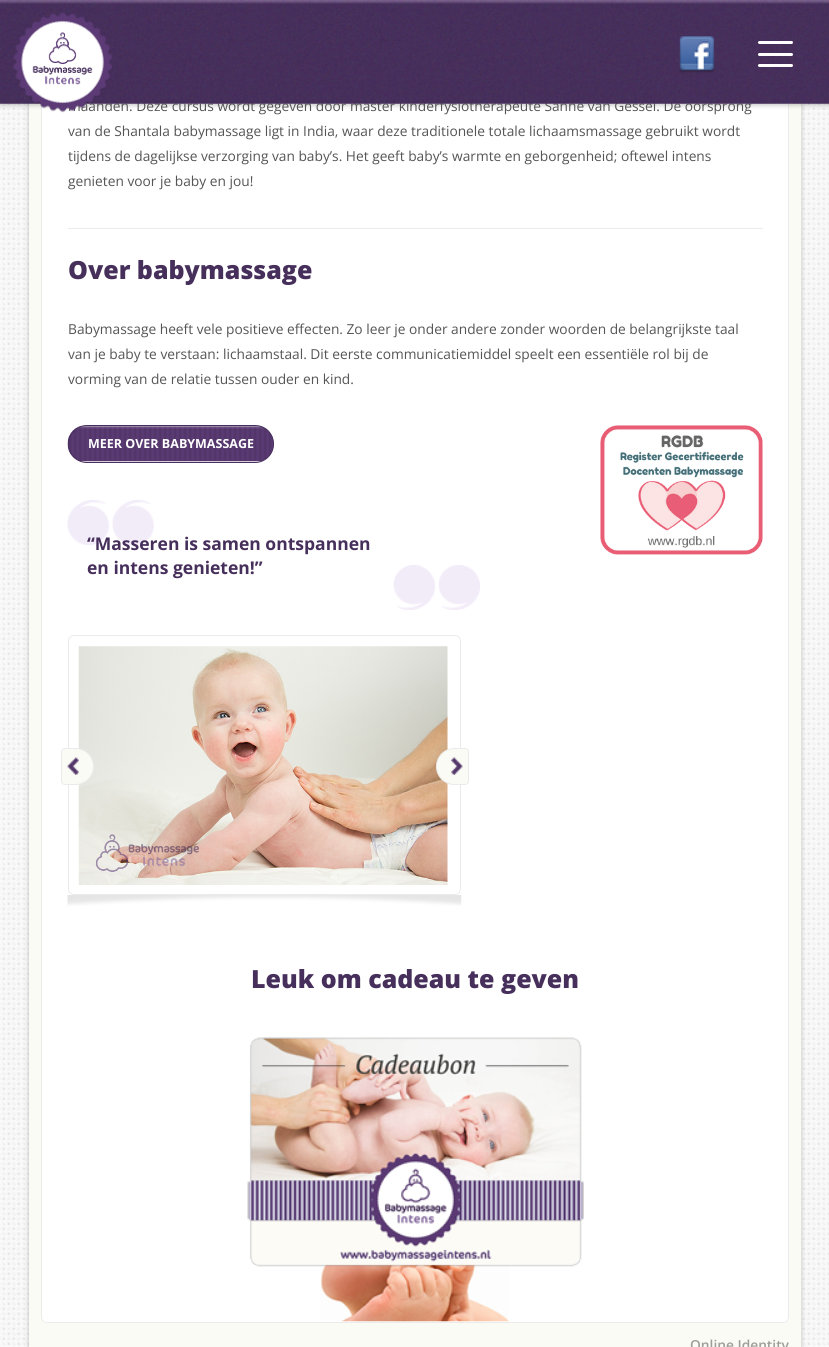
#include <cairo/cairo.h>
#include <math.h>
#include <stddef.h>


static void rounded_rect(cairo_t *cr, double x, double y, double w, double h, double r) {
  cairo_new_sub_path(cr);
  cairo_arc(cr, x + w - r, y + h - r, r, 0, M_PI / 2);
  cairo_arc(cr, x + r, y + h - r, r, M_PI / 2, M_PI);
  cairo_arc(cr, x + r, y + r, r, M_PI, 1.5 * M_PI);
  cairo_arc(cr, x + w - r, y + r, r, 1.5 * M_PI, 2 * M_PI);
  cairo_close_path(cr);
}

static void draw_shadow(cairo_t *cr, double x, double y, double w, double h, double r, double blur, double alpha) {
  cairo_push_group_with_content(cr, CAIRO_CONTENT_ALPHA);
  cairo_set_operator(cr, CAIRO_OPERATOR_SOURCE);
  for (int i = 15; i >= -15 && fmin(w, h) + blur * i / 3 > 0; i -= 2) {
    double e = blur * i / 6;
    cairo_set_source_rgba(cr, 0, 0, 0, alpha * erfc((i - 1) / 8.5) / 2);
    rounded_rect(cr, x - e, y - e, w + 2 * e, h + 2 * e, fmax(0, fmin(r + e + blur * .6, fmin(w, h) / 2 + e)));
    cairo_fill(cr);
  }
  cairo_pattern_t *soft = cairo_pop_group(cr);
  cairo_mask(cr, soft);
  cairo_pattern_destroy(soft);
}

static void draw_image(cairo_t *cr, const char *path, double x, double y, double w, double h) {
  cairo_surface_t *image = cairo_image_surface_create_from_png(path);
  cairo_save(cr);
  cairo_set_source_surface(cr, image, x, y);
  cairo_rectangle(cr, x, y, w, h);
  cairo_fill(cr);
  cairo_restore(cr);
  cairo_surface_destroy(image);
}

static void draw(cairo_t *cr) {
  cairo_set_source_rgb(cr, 1, 1, 1);
  cairo_paint(cr);
  draw_image(cr, "images/1.png", 0, 103, 829, 1244);
  cairo_set_source_rgb(cr, 0, 0, 0);
  draw_shadow(cr, 29, -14, 772, 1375, 6, 2.5, 0.25);
  cairo_set_source_rgb(cr, 251 / 255.0, 251 / 255.0, 245 / 255.0);
  cairo_rectangle(cr, 29, 103, 772, 1244);
  cairo_fill(cr);
  cairo_set_source_rgb(cr, 1, 1, 1);
  rounded_rect(cr, 41, -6, 748, 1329, 6);
  cairo_fill(cr);
  draw_image(cr, "images/5.png", 320, 1264, 189, 58);
  rounded_rect(cr, 41.5, -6.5, 747, 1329, 5.5);
  cairo_set_source_rgb(cr, 235 / 255.0, 235 / 255.0, 235 / 255.0);
  cairo_set_line_width(cr, 1);
  cairo_stroke(cr);
  cairo_set_source_rgb(cr, 0, 0, 0);
  draw_shadow(cr, 0, 1, 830, 104, 0, 2.5, 0.25);
  cairo_set_source_rgb(cr, 235 / 255.0, 235 / 255.0, 235 / 255.0);
  cairo_rectangle(cr, 68, 228, 695, 1);
  cairo_fill(cr);
  draw_image(cr, "images/6.png", 67, 426, 207, 36);
  rounded_rect(cr, 68.5, 425.5, 205, 37, 18.5);
  cairo_set_source_rgb(cr, 72 / 255.0, 47 / 255.0, 93 / 255.0);
  cairo_stroke(cr);
  draw_image(cr, "images/7.png", 600, 425, 163, 130);
  draw_image(cr, "images/8.png", 67, 500, 413, 110);
  draw_image(cr, "images/9.png", 67, 895, 395, 11);
  rounded_rect(cr, 68.5, 635.5, 392, 259, 5.5);
  cairo_set_source_rgb(cr, 235 / 255.0, 235 / 255.0, 235 / 255.0);
  cairo_stroke(cr);
  draw_image(cr, "images/10.png", 78, 646, 370, 239);
  cairo_set_source_rgb(cr, 251 / 255.0, 251 / 255.0, 245 / 255.0);
  cairo_new_path(cr);
  cairo_move_to(cr, 65, 748.5);
  cairo_line_to(cr, 75.5, 748.5);
  cairo_curve_to(cr, 85.5, 748.5, 93.5, 756.5, 93.5, 766.5);
  cairo_curve_to(cr, 93.5, 776.5, 85.5, 784.5, 75.5, 784.5);
  cairo_line_to(cr, 65, 784.5);
  cairo_curve_to(cr, 63, 784.5, 61.5, 783, 61.5, 781);
  cairo_line_to(cr, 61.5, 752);
  cairo_curve_to(cr, 61.5, 750, 63, 748.5, 65, 748.5);
  cairo_close_path(cr);
  cairo_fill_preserve(cr);
  cairo_set_source_rgb(cr, 235 / 255.0, 235 / 255.0, 235 / 255.0);
  cairo_stroke(cr);
  draw_image(cr, "images/11.png", 67, 757, 12, 18);
  cairo_set_source_rgb(cr, 251 / 255.0, 251 / 255.0, 245 / 255.0);
  cairo_new_path(cr);
  cairo_move_to(cr, 454.5, 748.5);
  cairo_line_to(cr, 465, 748.5);
  cairo_curve_to(cr, 467, 748.5, 468.5, 750, 468.5, 752);
  cairo_line_to(cr, 468.5, 781);
  cairo_curve_to(cr, 468.5, 783, 467, 784.5, 465, 784.5);
  cairo_line_to(cr, 454.5, 784.5);
  cairo_curve_to(cr, 444.5, 784.5, 436.5, 776.5, 436.5, 766.5);
  cairo_curve_to(cr, 436.5, 756.5, 444.5, 748.5, 454.5, 748.5);
  cairo_close_path(cr);
  cairo_fill_preserve(cr);
  cairo_set_source_rgb(cr, 235 / 255.0, 235 / 255.0, 235 / 255.0);
  cairo_stroke(cr);
  draw_image(cr, "images/12.png", 451, 757, 12, 18);
  draw_image(cr, "images/13.png", 247, 1037, 337, 230);
  cairo_select_font_face(cr, "Open Sans", CAIRO_FONT_SLANT_NORMAL, CAIRO_FONT_WEIGHT_NORMAL);
  cairo_set_font_size(cr, 13.75);
  cairo_set_source_rgb(cr, 85 / 255.0, 85 / 255.0, 85 / 255.0);
  cairo_move_to(cr, 68, 111);
  cairo_show_text(cr, "maanden. Deze cursus wordt gegeven door master kinderfysiotherapeute Sanne van Gessel. De oorsprong");
  draw_image(cr, "images/2.png", 0, 0, 829, 104);
  draw_image(cr, "images/4.png", 679, 36, 36, 37);
  draw_image(cr, "images/3.png", 13, 12, 99, 101);
  cairo_set_source_rgb(cr, 1, 1, 1);
  rounded_rect(cr, 758, 64, 35, 3, 1.5);
  cairo_fill(cr);
  rounded_rect(cr, 758, 41, 35, 3, 1.5);
  cairo_fill(cr);
  rounded_rect(cr, 758, 53, 35, 3, 1.5);
  cairo_fill(cr);
  cairo_set_source_rgb(cr, 85 / 255.0, 85 / 255.0, 85 / 255.0);
  cairo_move_to(cr, 68, 136);
  cairo_show_text(cr, "van de Shantala babymassage ligt in India, waar deze traditionele totale lichaamsmassage gebruikt wordt");
  cairo_move_to(cr, 68, 161);
  cairo_show_text(cr, "tijdens de dagelijkse verzorging van baby’s. Het geeft baby’s warmte en geborgenheid; oftewel intens");
  cairo_move_to(cr, 68, 186);
  cairo_show_text(cr, "genieten voor je baby en jou!");
  cairo_select_font_face(cr, "Open Sans ExtraBold", CAIRO_FONT_SLANT_NORMAL, CAIRO_FONT_WEIGHT_NORMAL);
  cairo_set_font_size(cr, 25);
  cairo_set_source_rgb(cr, 70 / 255.0, 47 / 255.0, 91 / 255.0);
  cairo_move_to(cr, 68, 279);
  cairo_show_text(cr, "Over babymassage");
  cairo_select_font_face(cr, "Open Sans", CAIRO_FONT_SLANT_NORMAL, CAIRO_FONT_WEIGHT_NORMAL);
  cairo_set_font_size(cr, 13.75);
  cairo_set_source_rgb(cr, 85 / 255.0, 85 / 255.0, 85 / 255.0);
  cairo_move_to(cr, 68, 334);
  cairo_show_text(cr, "Babymassage heeft vele positieve effecten. Zo leer je onder andere zonder woorden de belangrijkste taal");
  cairo_move_to(cr, 68, 359);
  cairo_show_text(cr, "van je baby te verstaan: lichaamstaal. Dit eerste communicatiemiddel speelt een essentiële rol bij de");
  cairo_move_to(cr, 68, 384);
  cairo_show_text(cr, "vorming van de relatie tussen ouder en kind.");
  cairo_select_font_face(cr, "Open Sans", CAIRO_FONT_SLANT_NORMAL, CAIRO_FONT_WEIGHT_BOLD);
  cairo_set_font_size(cr, 12.5);
  cairo_set_source_rgb(cr, 1, 1, 1);
  cairo_move_to(cr, 88, 448);
  cairo_show_text(cr, "MEER OVER BABYMASSAGE");
  cairo_set_font_size(cr, 17.5);
  cairo_set_source_rgb(cr, 70 / 255.0, 47 / 255.0, 91 / 255.0);
  cairo_move_to(cr, 87, 550);
  cairo_show_text(cr, "“Masseren is samen ontspannen");
  cairo_move_to(cr, 87, 574);
  cairo_show_text(cr, "en intens genieten!”");
  cairo_select_font_face(cr, "Open Sans ExtraBold", CAIRO_FONT_SLANT_NORMAL, CAIRO_FONT_WEIGHT_NORMAL);
  cairo_set_font_size(cr, 25);
  cairo_move_to(cr, 251, 988);
  cairo_show_text(cr, "Leuk om cadeau te geven");
  cairo_select_font_face(cr, "Open Sans SemiBold", CAIRO_FONT_SLANT_NORMAL, CAIRO_FONT_WEIGHT_NORMAL);
  cairo_set_font_size(cr, 13.75);
  cairo_set_source_rgb(cr, 157 / 255.0, 157 / 255.0, 153 / 255.0);
  cairo_move_to(cr, 690, 1350);
  cairo_show_text(cr, "Online Identity");
}

int main(void) {
  cairo_surface_t *surface = cairo_image_surface_create(CAIRO_FORMAT_RGB24, 829, 1347);
  cairo_t *cr = cairo_create(surface);
  cairo_font_options_t *options = cairo_font_options_create();
  cairo_font_options_set_hint_metrics(options, CAIRO_HINT_METRICS_OFF);
  cairo_font_options_set_hint_style(options, CAIRO_HINT_STYLE_NONE);
  cairo_set_font_options(cr, options);
  cairo_set_miter_limit(cr, 4);
  draw(cr);
  cairo_surface_write_to_png(surface, "out.png");
  cairo_font_options_destroy(options);
  cairo_destroy(cr);
  cairo_surface_destroy(surface);
  return 0;
}
